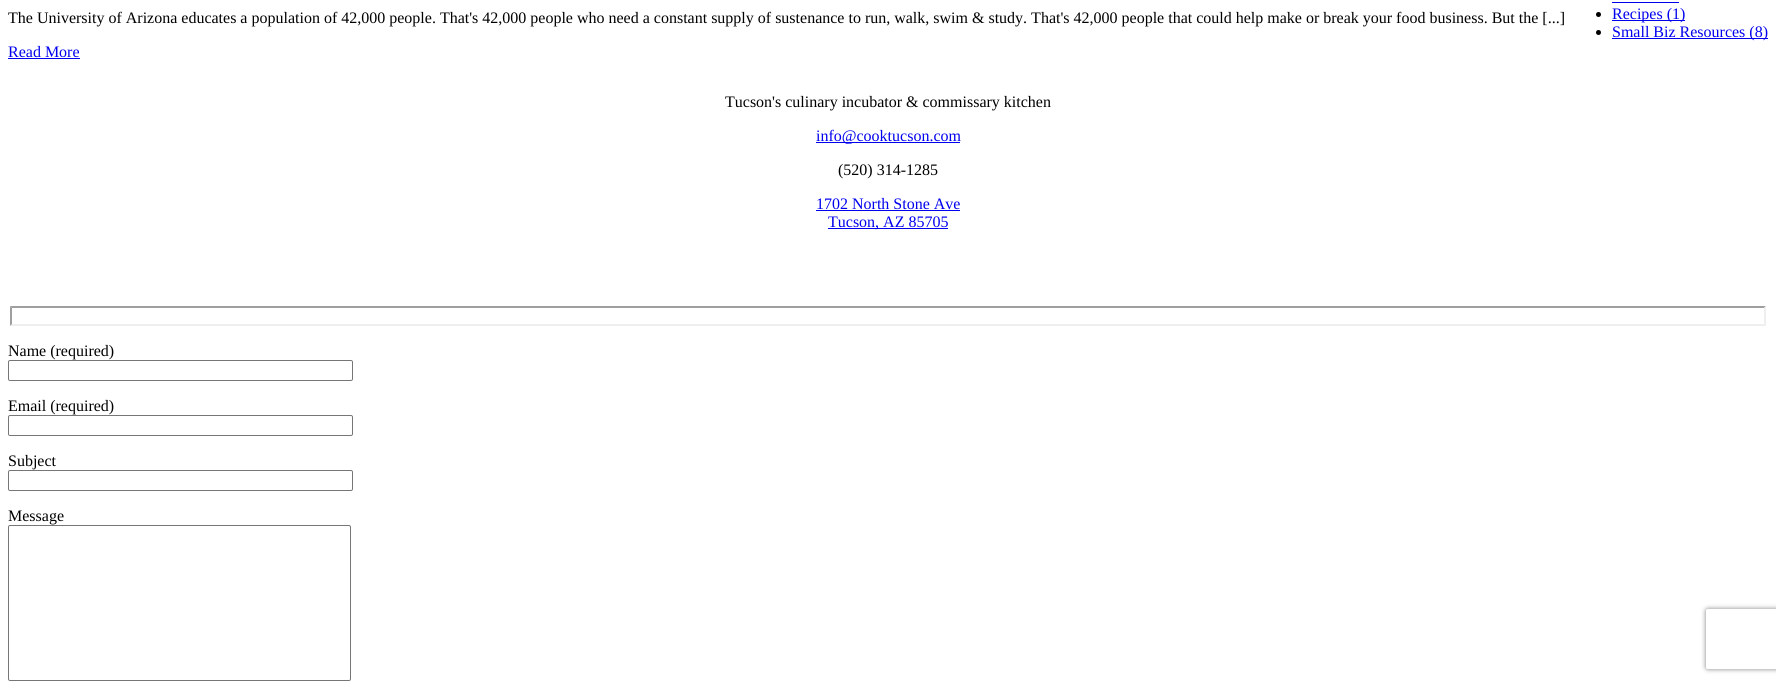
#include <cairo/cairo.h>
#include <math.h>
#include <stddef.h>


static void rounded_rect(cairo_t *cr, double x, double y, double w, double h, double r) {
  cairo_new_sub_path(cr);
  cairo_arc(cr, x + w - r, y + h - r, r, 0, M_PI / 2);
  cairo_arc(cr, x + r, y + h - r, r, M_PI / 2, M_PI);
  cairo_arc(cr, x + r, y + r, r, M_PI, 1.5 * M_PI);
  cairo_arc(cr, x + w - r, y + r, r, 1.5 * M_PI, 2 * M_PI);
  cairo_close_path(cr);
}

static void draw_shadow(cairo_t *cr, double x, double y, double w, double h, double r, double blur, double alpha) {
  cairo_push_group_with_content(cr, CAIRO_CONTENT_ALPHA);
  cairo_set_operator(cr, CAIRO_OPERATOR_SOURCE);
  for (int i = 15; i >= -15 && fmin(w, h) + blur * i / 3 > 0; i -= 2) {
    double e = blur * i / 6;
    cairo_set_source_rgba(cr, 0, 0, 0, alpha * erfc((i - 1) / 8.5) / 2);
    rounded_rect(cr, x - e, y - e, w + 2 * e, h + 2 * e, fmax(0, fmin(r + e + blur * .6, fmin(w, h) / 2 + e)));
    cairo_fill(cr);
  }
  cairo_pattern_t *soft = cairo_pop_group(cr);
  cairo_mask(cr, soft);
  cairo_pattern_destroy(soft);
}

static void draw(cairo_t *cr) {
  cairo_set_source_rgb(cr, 1, 1, 1);
  cairo_paint(cr);
  cairo_set_source_rgb(cr, 0, 0, 238 / 255.0);
  cairo_rectangle(cr, 8, 58, 72, 1);
  cairo_fill(cr);
  cairo_rectangle(cr, 1612, 2, 67, 1);
  cairo_fill(cr);
  cairo_set_source_rgb(cr, 0, 0, 0);
  cairo_arc(cr, 1598.5, 14.5, 2.5, 0, 2 * M_PI);
  cairo_fill(cr);
  cairo_set_source_rgb(cr, 0, 0, 238 / 255.0);
  cairo_rectangle(cr, 1612, 20, 73, 1);
  cairo_fill(cr);
  cairo_set_source_rgb(cr, 0, 0, 0);
  cairo_arc(cr, 1598.5, 32.5, 2.5, 0, 2 * M_PI);
  cairo_fill(cr);
  cairo_set_source_rgb(cr, 0, 0, 238 / 255.0);
  cairo_rectangle(cr, 1612, 38, 156, 1);
  cairo_fill(cr);
  cairo_rectangle(cr, 816, 142, 144, 1);
  cairo_fill(cr);
  cairo_rectangle(cr, 816, 210, 144, 1);
  cairo_fill(cr);
  cairo_rectangle(cr, 828, 228, 120, 1);
  cairo_fill(cr);
  cairo_set_source_rgb(cr, 159 / 255.0, 159 / 255.0, 159 / 255.0);
  cairo_new_path(cr);
  cairo_move_to(cr, 10, 306);
  cairo_line_to(cr, 1766, 306);
  cairo_line_to(cr, 1764, 308);
  cairo_line_to(cr, 12, 308);
  cairo_close_path(cr);
  cairo_fill(cr);
  cairo_set_source_rgb(cr, 239 / 255.0, 239 / 255.0, 239 / 255.0);
  cairo_new_path(cr);
  cairo_move_to(cr, 1766, 306);
  cairo_line_to(cr, 1766, 326);
  cairo_line_to(cr, 1764, 324);
  cairo_line_to(cr, 1764, 308);
  cairo_close_path(cr);
  cairo_fill(cr);
  cairo_new_path(cr);
  cairo_move_to(cr, 1766, 326);
  cairo_line_to(cr, 10, 326);
  cairo_line_to(cr, 12, 324);
  cairo_line_to(cr, 1764, 324);
  cairo_close_path(cr);
  cairo_fill(cr);
  cairo_set_source_rgb(cr, 159 / 255.0, 159 / 255.0, 159 / 255.0);
  cairo_new_path(cr);
  cairo_move_to(cr, 10, 326);
  cairo_line_to(cr, 10, 306);
  cairo_line_to(cr, 12, 308);
  cairo_line_to(cr, 12, 324);
  cairo_close_path(cr);
  cairo_fill(cr);
  rounded_rect(cr, 8.5, 360.5, 344, 20, 1.5);
  cairo_set_source_rgb(cr, 118 / 255.0, 118 / 255.0, 118 / 255.0);
  cairo_set_line_width(cr, 1);
  cairo_stroke(cr);
  rounded_rect(cr, 8.5, 415.5, 344, 20, 1.5);
  cairo_stroke(cr);
  rounded_rect(cr, 8.5, 470.5, 344, 20, 1.5);
  cairo_stroke(cr);
  rounded_rect(cr, 8.5, 525.5, 342, 155, 1.5);
  cairo_stroke(cr);
  cairo_save(cr);
  cairo_set_fill_rule(cr, CAIRO_FILL_RULE_EVEN_ODD);
  cairo_new_path(cr);
  cairo_move_to(cr, 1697, 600);
  cairo_line_to(cr, 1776, 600);
  cairo_line_to(cr, 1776, 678);
  cairo_line_to(cr, 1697, 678);
  cairo_close_path(cr);
  cairo_move_to(cr, 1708, 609);
  cairo_line_to(cr, 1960, 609);
  cairo_curve_to(cr, 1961, 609, 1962, 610, 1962, 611);
  cairo_line_to(cr, 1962, 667);
  cairo_curve_to(cr, 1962, 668, 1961, 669, 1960, 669);
  cairo_line_to(cr, 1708, 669);
  cairo_curve_to(cr, 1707, 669, 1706, 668, 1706, 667);
  cairo_line_to(cr, 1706, 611);
  cairo_curve_to(cr, 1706, 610, 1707, 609, 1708, 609);
  cairo_close_path(cr);
  cairo_clip(cr);
  cairo_set_source_rgb(cr, 128 / 255.0, 128 / 255.0, 128 / 255.0);
  draw_shadow(cr, 1706, 609, 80, 60, 2, 2.5, 1);
  cairo_restore(cr);
  cairo_select_font_face(cr, "Liberation Serif", CAIRO_FONT_SLANT_NORMAL, CAIRO_FONT_WEIGHT_NORMAL);
  cairo_set_font_size(cr, 16);
  cairo_set_source_rgb(cr, 0, 0, 0);
  cairo_move_to(cr, 8, 23);
  cairo_show_text(cr, "The University of Arizona educates a population of 42,000 people. That's 42,000 people who need a constant supply of sustenance to run, walk, swim & study. That's 42,000 people that could help make or break your food business. But the [...]");
  cairo_set_source_rgb(cr, 0, 0, 238 / 255.0);
  cairo_move_to(cr, 8, 57);
  cairo_show_text(cr, "Read More");
  cairo_move_to(cr, 1612, 19);
  cairo_show_text(cr, "Recipes (1)");
  cairo_move_to(cr, 1612, 37);
  cairo_show_text(cr, "Small Biz Resources (8)");
  cairo_set_source_rgb(cr, 0, 0, 0);
  cairo_move_to(cr, 725, 107);
  cairo_show_text(cr, "Tucson's culinary incubator & commissary kitchen");
  cairo_set_source_rgb(cr, 0, 0, 238 / 255.0);
  cairo_move_to(cr, 816, 141);
  cairo_show_text(cr, "info@cooktucson.com");
  cairo_set_source_rgb(cr, 0, 0, 0);
  cairo_move_to(cr, 838, 175);
  cairo_show_text(cr, "(520) 314-1285");
  cairo_set_source_rgb(cr, 0, 0, 238 / 255.0);
  cairo_move_to(cr, 816, 209);
  cairo_show_text(cr, "1702 North Stone Ave");
  cairo_move_to(cr, 828, 227);
  cairo_show_text(cr, "Tucson, AZ 85705");
  cairo_set_source_rgb(cr, 0, 0, 0);
  cairo_move_to(cr, 8, 356);
  cairo_show_text(cr, "Name (required)");
  cairo_move_to(cr, 8, 411);
  cairo_show_text(cr, "Email (required)");
  cairo_move_to(cr, 8, 466);
  cairo_show_text(cr, "Subject");
  cairo_move_to(cr, 8, 521);
  cairo_show_text(cr, "Message");
}

int main(void) {
  cairo_surface_t *surface = cairo_image_surface_create(CAIRO_FORMAT_RGB24, 1776, 683);
  cairo_t *cr = cairo_create(surface);
  cairo_font_options_t *options = cairo_font_options_create();
  cairo_font_options_set_hint_metrics(options, CAIRO_HINT_METRICS_OFF);
  cairo_font_options_set_hint_style(options, CAIRO_HINT_STYLE_NONE);
  cairo_set_font_options(cr, options);
  cairo_set_miter_limit(cr, 4);
  draw(cr);
  cairo_surface_write_to_png(surface, "out.png");
  cairo_font_options_destroy(options);
  cairo_destroy(cr);
  cairo_surface_destroy(surface);
  return 0;
}
